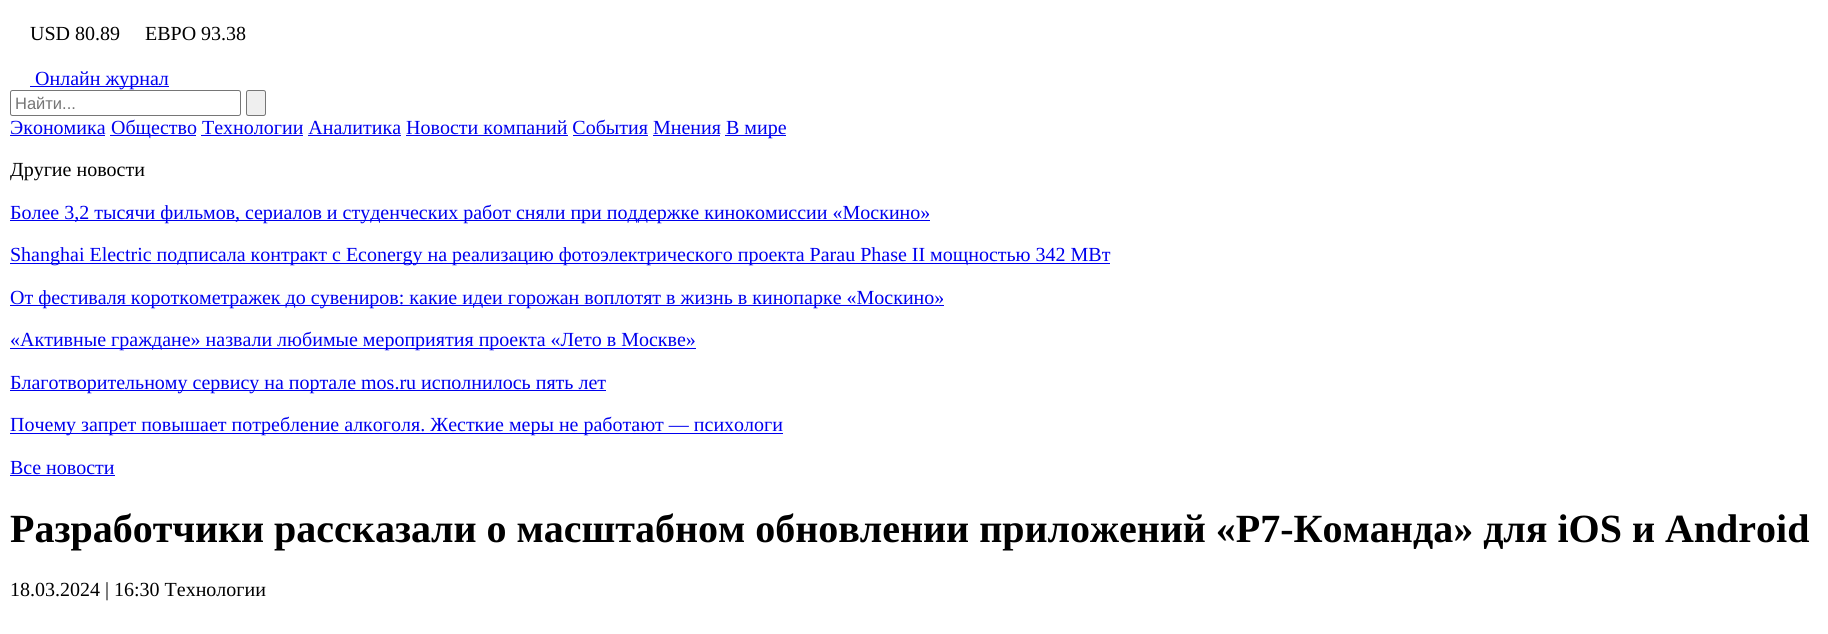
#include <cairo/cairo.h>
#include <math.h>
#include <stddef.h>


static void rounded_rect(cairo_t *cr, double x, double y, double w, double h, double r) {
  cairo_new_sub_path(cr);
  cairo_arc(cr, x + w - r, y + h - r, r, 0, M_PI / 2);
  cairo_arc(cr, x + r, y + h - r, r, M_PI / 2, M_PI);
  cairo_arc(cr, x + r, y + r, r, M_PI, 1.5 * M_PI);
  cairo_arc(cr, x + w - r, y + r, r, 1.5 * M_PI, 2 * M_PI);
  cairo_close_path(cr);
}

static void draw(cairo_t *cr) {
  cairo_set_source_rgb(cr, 1, 1, 1);
  cairo_paint(cr);
  cairo_set_source_rgb(cr, 0, 0, 238 / 255.0);
  cairo_rectangle(cr, 30, 86, 139, 1);
  cairo_fill(cr);
  rounded_rect(cr, 10.5, 90.5, 230, 25, 2);
  cairo_set_source_rgb(cr, 118 / 255.0, 118 / 255.0, 118 / 255.0);
  cairo_set_line_width(cr, 1);
  cairo_stroke(cr);
  cairo_set_source_rgb(cr, 239 / 255.0, 239 / 255.0, 239 / 255.0);
  rounded_rect(cr, 246.5, 90.5, 19, 25, 2);
  cairo_fill_preserve(cr);
  cairo_set_source_rgb(cr, 118 / 255.0, 118 / 255.0, 118 / 255.0);
  cairo_stroke(cr);
  cairo_set_source_rgb(cr, 0, 0, 238 / 255.0);
  cairo_rectangle(cr, 10, 135, 95, 1);
  cairo_fill(cr);
  cairo_rectangle(cr, 110, 135, 86, 1);
  cairo_fill(cr);
  cairo_rectangle(cr, 725, 135, 61, 1);
  cairo_fill(cr);
  cairo_rectangle(cr, 201, 135, 102, 1);
  cairo_fill(cr);
  cairo_rectangle(cr, 308, 135, 93, 1);
  cairo_fill(cr);
  cairo_rectangle(cr, 406, 135, 162, 1);
  cairo_fill(cr);
  cairo_rectangle(cr, 573, 135, 75, 1);
  cairo_fill(cr);
  cairo_rectangle(cr, 653, 135, 67, 1);
  cairo_fill(cr);
  cairo_rectangle(cr, 10, 220, 920, 1);
  cairo_fill(cr);
  cairo_rectangle(cr, 10, 263, 1100, 1);
  cairo_fill(cr);
  cairo_rectangle(cr, 10, 305, 934, 1);
  cairo_fill(cr);
  cairo_rectangle(cr, 10, 348, 686, 1);
  cairo_fill(cr);
  cairo_rectangle(cr, 10, 390, 596, 1);
  cairo_fill(cr);
  cairo_rectangle(cr, 10, 433, 773, 1);
  cairo_fill(cr);
  cairo_rectangle(cr, 10, 475, 105, 1);
  cairo_fill(cr);
  cairo_select_font_face(cr, "Liberation Serif", CAIRO_FONT_SLANT_NORMAL, CAIRO_FONT_WEIGHT_NORMAL);
  cairo_set_font_size(cr, 20);
  cairo_set_source_rgb(cr, 0, 0, 0);
  cairo_move_to(cr, 30, 40);
  cairo_show_text(cr, "USD 80.89");
  cairo_move_to(cr, 145, 40);
  cairo_show_text(cr, "ЕВРО 93.38");
  cairo_set_source_rgb(cr, 0, 0, 238 / 255.0);
  cairo_move_to(cr, 35, 85);
  cairo_show_text(cr, "Онлайн журнал");
  cairo_select_font_face(cr, "Liberation Sans", CAIRO_FONT_SLANT_NORMAL, CAIRO_FONT_WEIGHT_NORMAL);
  cairo_set_font_size(cr, 16.5);
  cairo_set_source_rgb(cr, 117 / 255.0, 117 / 255.0, 117 / 255.0);
  cairo_move_to(cr, 15, 109);
  cairo_show_text(cr, "Найти...");
  cairo_select_font_face(cr, "Liberation Serif", CAIRO_FONT_SLANT_NORMAL, CAIRO_FONT_WEIGHT_NORMAL);
  cairo_set_font_size(cr, 20);
  cairo_set_source_rgb(cr, 0, 0, 238 / 255.0);
  cairo_move_to(cr, 10, 134);
  cairo_show_text(cr, "Экономика");
  cairo_move_to(cr, 111, 134);
  cairo_show_text(cr, "Общество Технологии Аналитика Новости компаний События Мнения");
  cairo_move_to(cr, 726, 134);
  cairo_show_text(cr, "В мире");
  cairo_set_source_rgb(cr, 0, 0, 0);
  cairo_move_to(cr, 10, 176);
  cairo_show_text(cr, "Другие новости");
  cairo_set_source_rgb(cr, 0, 0, 238 / 255.0);
  cairo_move_to(cr, 10, 219);
  cairo_show_text(cr, "Более 3,2 тысячи фильмов, сериалов и студенческих работ сняли при поддержке кинокомиссии «Москино»");
  cairo_move_to(cr, 10, 261);
  cairo_show_text(cr, "Shanghai Electric подписала контракт с Econergy на реализацию фотоэлектрического проекта Parau Phase II мощностью 342 МВт");
  cairo_move_to(cr, 10, 304);
  cairo_show_text(cr, "От фестиваля короткометражек до сувениров: какие идеи горожан воплотят в жизнь в кинопарке «Москино»");
  cairo_move_to(cr, 10, 346);
  cairo_show_text(cr, "«Активные граждане» назвали любимые мероприятия проекта «Лето в Москве»");
  cairo_move_to(cr, 10, 389);
  cairo_show_text(cr, "Благотворительному сервису на портале mos.ru исполнилось пять лет");
  cairo_move_to(cr, 10, 431);
  cairo_show_text(cr, "Почему запрет повышает потребление алкоголя. Жесткие меры не работают — психологи");
  cairo_move_to(cr, 10, 474);
  cairo_show_text(cr, "Все новости");
  cairo_select_font_face(cr, "Liberation Serif", CAIRO_FONT_SLANT_NORMAL, CAIRO_FONT_WEIGHT_BOLD);
  cairo_set_font_size(cr, 40);
  cairo_set_source_rgb(cr, 0, 0, 0);
  cairo_move_to(cr, 10, 542);
  cairo_show_text(cr, "Разработчики рассказали о масштабном обновлении приложений «Р7-Команда» для iOS и Android");
  cairo_select_font_face(cr, "Liberation Serif", CAIRO_FONT_SLANT_NORMAL, CAIRO_FONT_WEIGHT_NORMAL);
  cairo_set_font_size(cr, 20);
  cairo_move_to(cr, 10, 596);
  cairo_show_text(cr, "18.03.2024 | 16:30 Технологии");
}

int main(void) {
  cairo_surface_t *surface = cairo_image_surface_create(CAIRO_FORMAT_RGB24, 1828, 634);
  cairo_t *cr = cairo_create(surface);
  cairo_font_options_t *options = cairo_font_options_create();
  cairo_font_options_set_hint_metrics(options, CAIRO_HINT_METRICS_OFF);
  cairo_font_options_set_hint_style(options, CAIRO_HINT_STYLE_NONE);
  cairo_set_font_options(cr, options);
  cairo_set_miter_limit(cr, 4);
  draw(cr);
  cairo_surface_write_to_png(surface, "out.png");
  cairo_font_options_destroy(options);
  cairo_destroy(cr);
  cairo_surface_destroy(surface);
  return 0;
}
